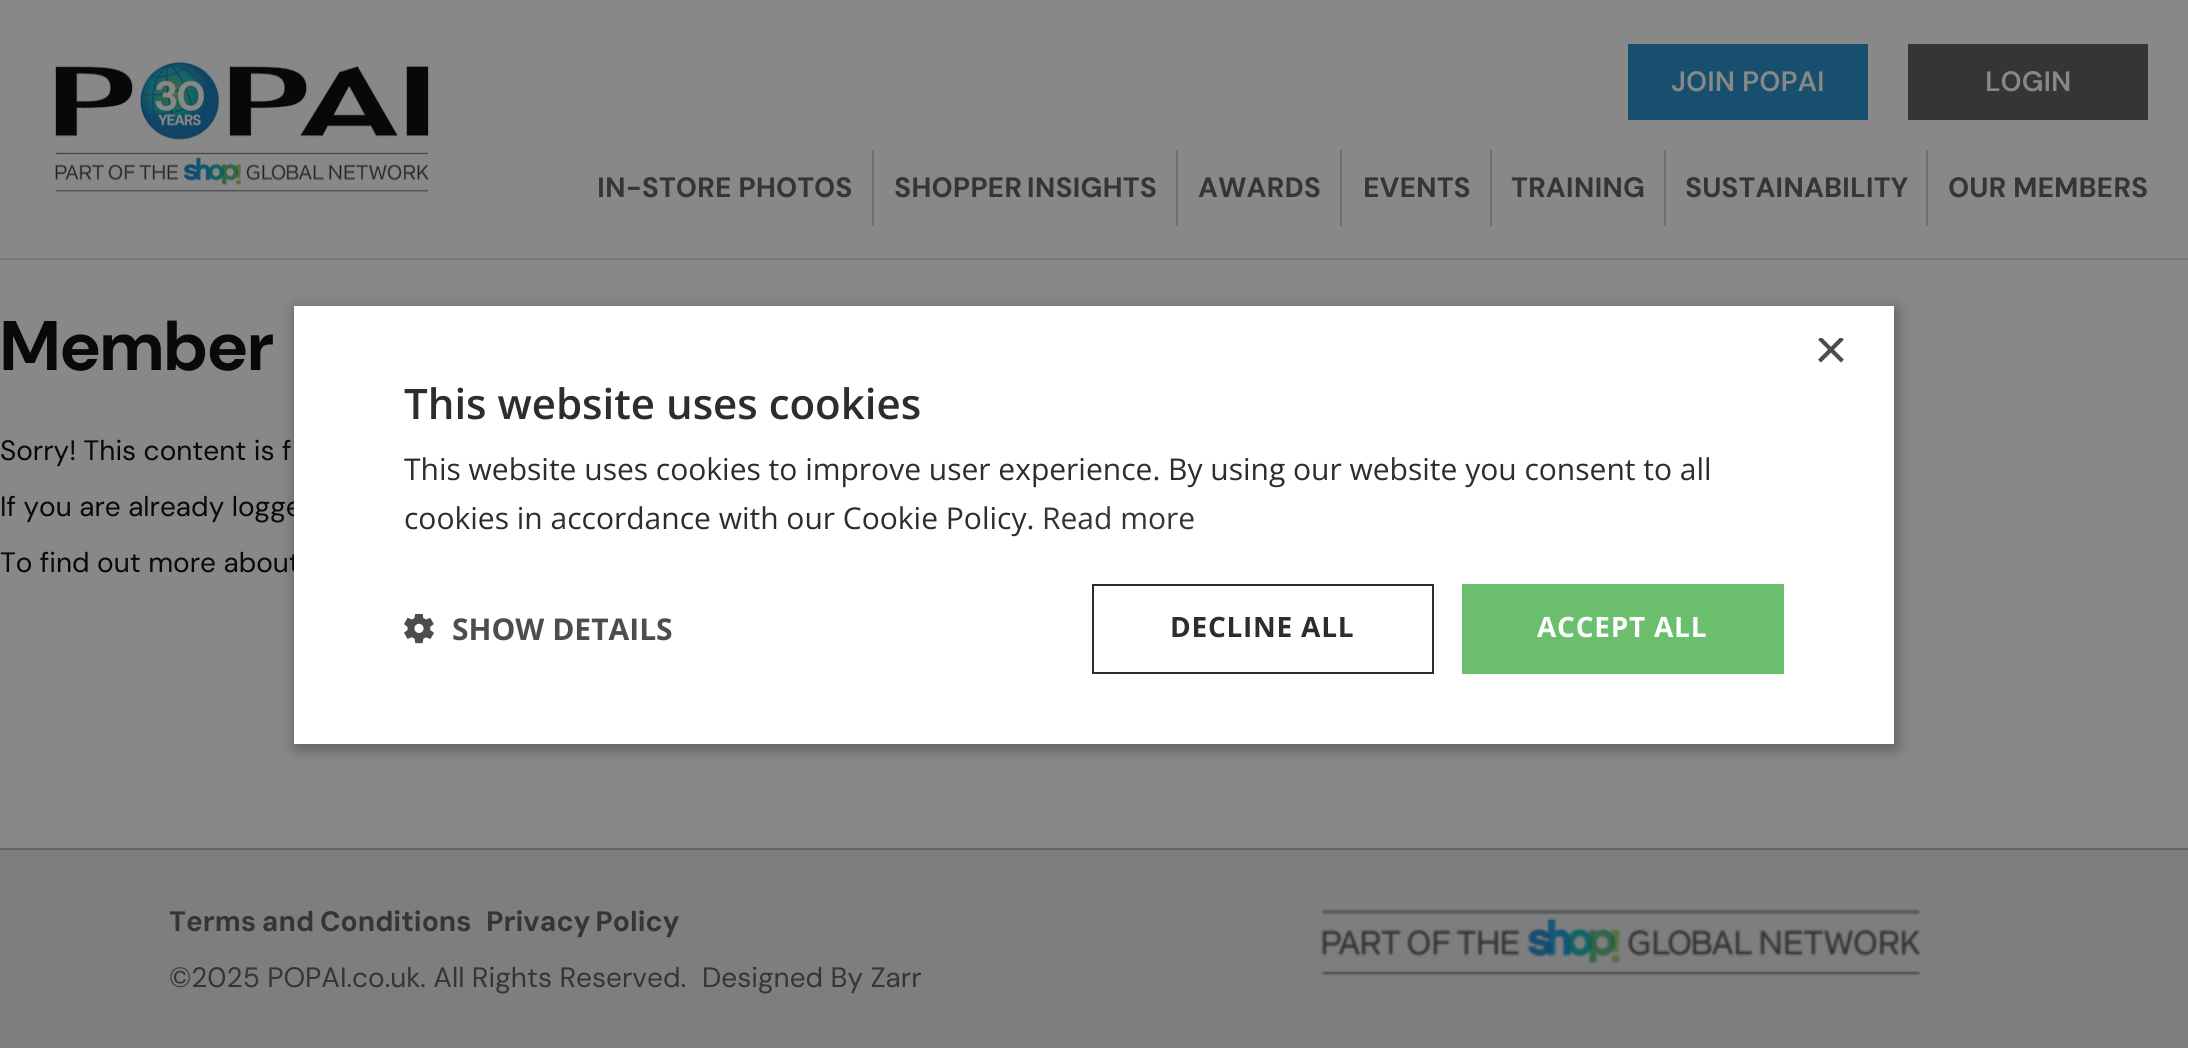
#include <cairo/cairo.h>
#include <math.h>
#include <stddef.h>


static void draw_spaced(cairo_t *cr, double x, double y, const char *s, double letter, double word) {
  cairo_move_to(cr, x, y);
  while (*s) {
    char ch[5] = {0};
    int n = 0;
    do ch[n++] = *s++; while ((*s & 0xC0) == 0x80);
    cairo_show_text(cr, ch);
    cairo_rel_move_to(cr, letter + word * (*ch == ' '), 0);
  }
}

static void rounded_rect(cairo_t *cr, double x, double y, double w, double h, double r) {
  cairo_new_sub_path(cr);
  cairo_arc(cr, x + w - r, y + h - r, r, 0, M_PI / 2);
  cairo_arc(cr, x + r, y + h - r, r, M_PI / 2, M_PI);
  cairo_arc(cr, x + r, y + r, r, M_PI, 1.5 * M_PI);
  cairo_arc(cr, x + w - r, y + r, r, 1.5 * M_PI, 2 * M_PI);
  cairo_close_path(cr);
}

static void draw_shadow(cairo_t *cr, double x, double y, double w, double h, double r, double blur, double alpha) {
  cairo_push_group_with_content(cr, CAIRO_CONTENT_ALPHA);
  cairo_set_operator(cr, CAIRO_OPERATOR_SOURCE);
  for (int i = 15; i >= -15 && fmin(w, h) + blur * i / 3 > 0; i -= 2) {
    double e = blur * i / 6;
    cairo_set_source_rgba(cr, 0, 0, 0, alpha * erfc((i - 1) / 8.5) / 2);
    rounded_rect(cr, x - e, y - e, w + 2 * e, h + 2 * e, fmax(0, fmin(r + e + blur * .6, fmin(w, h) / 2 + e)));
    cairo_fill(cr);
  }
  cairo_pattern_t *soft = cairo_pop_group(cr);
  cairo_mask(cr, soft);
  cairo_pattern_destroy(soft);
}

static void draw_image(cairo_t *cr, const char *path, double x, double y, double w, double h) {
  cairo_surface_t *image = cairo_image_surface_create_from_png(path);
  cairo_save(cr);
  cairo_set_source_surface(cr, image, x, y);
  cairo_rectangle(cr, x, y, w, h);
  cairo_fill(cr);
  cairo_restore(cr);
  cairo_surface_destroy(image);
}

static void draw(cairo_t *cr) {
  cairo_set_source_rgb(cr, 136 / 255.0, 136 / 255.0, 136 / 255.0);
  cairo_paint(cr);
  cairo_set_source_rgb(cr, 122 / 255.0, 122 / 255.0, 122 / 255.0);
  cairo_rectangle(cr, 0, 258, 2188, 2);
  cairo_fill(cr);
  draw_image(cr, "images/1.png", 55, 61, 374, 132);
  cairo_set_source_rgb(cr, 24 / 255.0, 78 / 255.0, 110 / 255.0);
  cairo_rectangle(cr, 1628, 44, 240, 76);
  cairo_fill(cr);
  cairo_set_source_rgb(cr, 53 / 255.0, 53 / 255.0, 54 / 255.0);
  cairo_rectangle(cr, 1908, 44, 240, 76);
  cairo_fill(cr);
  cairo_set_source_rgb(cr, 110 / 255.0, 110 / 255.0, 110 / 255.0);
  cairo_rectangle(cr, 872, 150, 2, 76);
  cairo_fill(cr);
  cairo_rectangle(cr, 1176, 150, 2, 76);
  cairo_fill(cr);
  cairo_rectangle(cr, 1340, 150, 2, 76);
  cairo_fill(cr);
  cairo_rectangle(cr, 1490, 150, 2, 76);
  cairo_fill(cr);
  cairo_rectangle(cr, 1664, 150, 2, 76);
  cairo_fill(cr);
  cairo_rectangle(cr, 1926, 150, 2, 76);
  cairo_fill(cr);
  cairo_set_source_rgb(cr, 126 / 255.0, 126 / 255.0, 128 / 255.0);
  cairo_rectangle(cr, 0, 850, 2188, 198);
  cairo_fill(cr);
  cairo_set_source_rgb(cr, 100 / 255.0, 100 / 255.0, 100 / 255.0);
  cairo_rectangle(cr, 0, 848, 2188, 2);
  cairo_fill(cr);
  draw_image(cr, "images/2.png", 1321, 909, 600, 67);
  cairo_set_source_rgb(cr, 0, 0, 0);
  draw_shadow(cr, 296, 310, 1600, 438, 0, 8, 0.35);
  cairo_select_font_face(cr, "DM Sans SemiBold", CAIRO_FONT_SLANT_NORMAL, CAIRO_FONT_WEIGHT_NORMAL);
  cairo_set_font_size(cr, 28);
  cairo_set_source_rgb(cr, 136 / 255.0, 136 / 255.0, 136 / 255.0);
  cairo_move_to(cr, 1671, 91);
  cairo_show_text(cr, "JOIN POPAI");
  cairo_move_to(cr, 1985, 91);
  cairo_show_text(cr, "LOGIN");
  cairo_select_font_face(cr, "DM Sans", CAIRO_FONT_SLANT_NORMAL, CAIRO_FONT_WEIGHT_BOLD);
  cairo_set_source_rgb(cr, 53 / 255.0, 53 / 255.0, 54 / 255.0);
  cairo_move_to(cr, 597, 197);
  cairo_show_text(cr, "IN-STORE PHOTOS");
  draw_spaced(cr, 894, 197, "SHOPPER INSIGHTS", 0, -2);
  cairo_move_to(cr, 1198, 197);
  cairo_show_text(cr, "AWARDS");
  cairo_move_to(cr, 1363, 197);
  cairo_show_text(cr, "EVENTS");
  cairo_move_to(cr, 1511, 197);
  cairo_show_text(cr, "TRAINING");
  cairo_move_to(cr, 1685, 197);
  cairo_show_text(cr, "SUSTAINABILITY");
  cairo_move_to(cr, 1948, 197);
  cairo_show_text(cr, "OUR MEMBERS");
  cairo_select_font_face(cr, "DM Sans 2", CAIRO_FONT_SLANT_NORMAL, CAIRO_FONT_WEIGHT_BOLD);
  cairo_set_font_size(cr, 70);
  cairo_set_source_rgb(cr, 9 / 255.0, 9 / 255.0, 9 / 255.0);
  cairo_move_to(cr, 0, 370);
  cairo_show_text(cr, "Member");
  cairo_select_font_face(cr, "DM Sans", CAIRO_FONT_SLANT_NORMAL, CAIRO_FONT_WEIGHT_NORMAL);
  cairo_set_font_size(cr, 28);
  cairo_move_to(cr, 0, 460);
  cairo_show_text(cr, "Sorry! This content is f");
  cairo_move_to(cr, 0, 516);
  cairo_show_text(cr, "If you are already logge");
  cairo_move_to(cr, 0, 572);
  cairo_show_text(cr, "To find out more about");
  cairo_select_font_face(cr, "DM Sans", CAIRO_FONT_SLANT_NORMAL, CAIRO_FONT_WEIGHT_BOLD);
  cairo_set_source_rgb(cr, 53 / 255.0, 53 / 255.0, 54 / 255.0);
  draw_spaced(cr, 169, 931, "Terms and Conditions", 0, -1);
  draw_spaced(cr, 486, 931, "Privacy Policy", 0, -2);
  cairo_select_font_face(cr, "DM Sans", CAIRO_FONT_SLANT_NORMAL, CAIRO_FONT_WEIGHT_NORMAL);
  cairo_move_to(cr, 169, 987);
  cairo_show_text(cr, "©2025 POPAI.co.uk. All Rights Reserved.");
  cairo_move_to(cr, 702, 987);
  cairo_show_text(cr, "Designed By Zarr");
  cairo_set_source_rgb(cr, 1, 1, 1);
  cairo_rectangle(cr, 294, 306, 1600, 438);
  cairo_fill(cr);
  cairo_save(cr);
  cairo_rectangle(cr, 1814, 338, 30, 30);
  cairo_clip(cr);
  cairo_select_font_face(cr, "Liberation Sans", CAIRO_FONT_SLANT_NORMAL, CAIRO_FONT_WEIGHT_NORMAL);
  cairo_set_font_size(cr, 58);
  cairo_set_source_rgb(cr, 77 / 255.0, 77 / 255.0, 77 / 255.0);
  cairo_move_to(cr, 1814, 369);
  cairo_show_text(cr, "×");
  cairo_restore(cr);
  cairo_select_font_face(cr, "Open Sans SemiBold", CAIRO_FONT_SLANT_NORMAL, CAIRO_FONT_WEIGHT_NORMAL);
  cairo_set_font_size(cr, 42);
  cairo_set_source_rgb(cr, 45 / 255.0, 45 / 255.0, 45 / 255.0);
  cairo_move_to(cr, 404, 419);
  cairo_show_text(cr, "This website uses cookies");
  cairo_select_font_face(cr, "Open Sans", CAIRO_FONT_SLANT_NORMAL, CAIRO_FONT_WEIGHT_NORMAL);
  cairo_set_font_size(cr, 30);
  cairo_move_to(cr, 404, 480);
  cairo_show_text(cr, "This website uses cookies to improve user experience. By using our website you consent to all");
  cairo_move_to(cr, 404, 529);
  cairo_show_text(cr, "cookies in accordance with our Cookie Policy.");
  cairo_set_source_rgb(cr, 53 / 255.0, 53 / 255.0, 54 / 255.0);
  cairo_move_to(cr, 1042, 529);
  cairo_show_text(cr, "Read more");
  draw_image(cr, "images/3.png", 404, 614, 30, 30);
  cairo_select_font_face(cr, "Open Sans", CAIRO_FONT_SLANT_NORMAL, CAIRO_FONT_WEIGHT_BOLD);
  cairo_set_source_rgb(cr, 77 / 255.0, 77 / 255.0, 77 / 255.0);
  cairo_move_to(cr, 452, 640);
  cairo_show_text(cr, "SHOW DETAILS");
  cairo_rectangle(cr, 1093, 585, 340, 88);
  cairo_set_source_rgb(cr, 45 / 255.0, 45 / 255.0, 45 / 255.0);
  cairo_stroke(cr);
  cairo_set_font_size(cr, 28);
  draw_spaced(cr, 1170, 637, "DECLINE ALL", 0.75, 0);
  cairo_set_source_rgb(cr, 107 / 255.0, 190 / 255.0, 107 / 255.0);
  cairo_rectangle(cr, 1462, 584, 322, 90);
  cairo_fill(cr);
  cairo_set_source_rgb(cr, 1, 1, 1);
  draw_spaced(cr, 1537, 637, "ACCEPT ALL", 0.75, 0);
}

int main(void) {
  cairo_surface_t *surface = cairo_image_surface_create(CAIRO_FORMAT_RGB24, 2188, 1048);
  cairo_t *cr = cairo_create(surface);
  cairo_font_options_t *options = cairo_font_options_create();
  cairo_font_options_set_hint_metrics(options, CAIRO_HINT_METRICS_OFF);
  cairo_font_options_set_hint_style(options, CAIRO_HINT_STYLE_NONE);
  cairo_set_font_options(cr, options);
  cairo_set_miter_limit(cr, 4);
  draw(cr);
  cairo_surface_write_to_png(surface, "out.png");
  cairo_font_options_destroy(options);
  cairo_destroy(cr);
  cairo_surface_destroy(surface);
  return 0;
}
